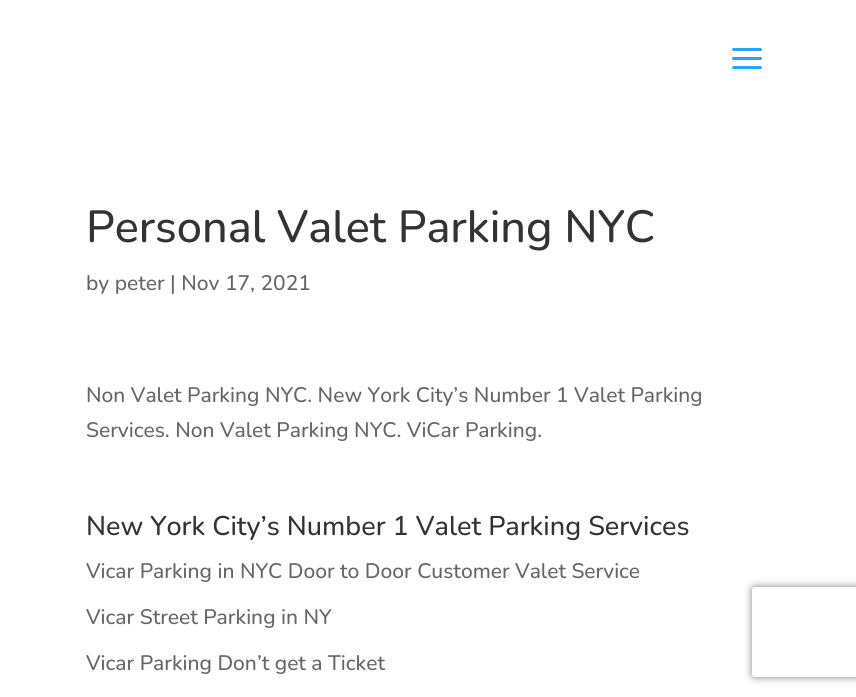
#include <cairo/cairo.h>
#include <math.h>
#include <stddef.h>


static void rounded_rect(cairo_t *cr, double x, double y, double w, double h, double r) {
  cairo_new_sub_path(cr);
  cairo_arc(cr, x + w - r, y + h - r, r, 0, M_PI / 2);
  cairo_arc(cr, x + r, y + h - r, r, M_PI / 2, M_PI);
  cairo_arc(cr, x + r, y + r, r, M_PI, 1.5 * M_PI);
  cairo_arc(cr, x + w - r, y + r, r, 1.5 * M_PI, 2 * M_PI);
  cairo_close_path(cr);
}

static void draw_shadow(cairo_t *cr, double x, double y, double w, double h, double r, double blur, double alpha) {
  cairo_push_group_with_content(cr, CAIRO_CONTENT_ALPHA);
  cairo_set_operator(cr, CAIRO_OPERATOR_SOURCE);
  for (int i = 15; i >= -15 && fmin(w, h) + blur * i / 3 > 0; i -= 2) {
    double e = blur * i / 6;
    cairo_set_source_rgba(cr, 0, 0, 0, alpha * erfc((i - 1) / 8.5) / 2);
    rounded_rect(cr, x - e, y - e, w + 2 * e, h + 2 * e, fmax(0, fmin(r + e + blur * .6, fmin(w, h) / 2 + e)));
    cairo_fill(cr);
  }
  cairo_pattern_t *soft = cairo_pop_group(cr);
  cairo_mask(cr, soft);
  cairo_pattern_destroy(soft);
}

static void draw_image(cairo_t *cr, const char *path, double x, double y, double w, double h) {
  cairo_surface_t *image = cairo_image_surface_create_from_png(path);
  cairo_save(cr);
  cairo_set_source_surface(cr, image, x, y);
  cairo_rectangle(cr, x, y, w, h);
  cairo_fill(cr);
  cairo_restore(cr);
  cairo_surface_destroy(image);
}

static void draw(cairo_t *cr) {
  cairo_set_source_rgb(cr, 1, 1, 1);
  cairo_paint(cr);
  draw_image(cr, "images/1.png", 732, 48, 30, 21);
  cairo_save(cr);
  cairo_set_fill_rule(cr, CAIRO_FILL_RULE_EVEN_ODD);
  cairo_new_path(cr);
  cairo_move_to(cr, 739, 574);
  cairo_line_to(cr, 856, 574);
  cairo_line_to(cr, 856, 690);
  cairo_line_to(cr, 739, 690);
  cairo_close_path(cr);
  cairo_move_to(cr, 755, 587);
  cairo_line_to(cr, 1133, 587);
  cairo_curve_to(cr, 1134.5, 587, 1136, 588.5, 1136, 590);
  cairo_line_to(cr, 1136, 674);
  cairo_curve_to(cr, 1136, 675.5, 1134.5, 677, 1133, 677);
  cairo_line_to(cr, 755, 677);
  cairo_curve_to(cr, 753.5, 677, 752, 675.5, 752, 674);
  cairo_line_to(cr, 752, 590);
  cairo_curve_to(cr, 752, 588.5, 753.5, 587, 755, 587);
  cairo_close_path(cr);
  cairo_clip(cr);
  cairo_set_source_rgb(cr, 128 / 255.0, 128 / 255.0, 128 / 255.0);
  draw_shadow(cr, 752, 587, 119, 90, 3, 4, 1);
  cairo_restore(cr);
  cairo_select_font_face(cr, "Nunito Medium", CAIRO_FONT_SLANT_NORMAL, CAIRO_FONT_WEIGHT_NORMAL);
  cairo_set_font_size(cr, 45);
  cairo_set_source_rgb(cr, 51 / 255.0, 51 / 255.0, 51 / 255.0);
  cairo_move_to(cr, 86, 242);
  cairo_show_text(cr, "Personal Valet Parking NYC");
  cairo_set_font_size(cr, 21);
  cairo_set_source_rgb(cr, 102 / 255.0, 102 / 255.0, 102 / 255.0);
  cairo_move_to(cr, 86, 290);
  cairo_show_text(cr, "by peter | Nov 17, 2021");
  cairo_move_to(cr, 86, 402);
  cairo_show_text(cr, "Non Valet Parking NYC. New York City’s Number 1 Valet Parking");
  cairo_move_to(cr, 86, 437);
  cairo_show_text(cr, "Services. Non Valet Parking NYC. ViCar Parking.");
  cairo_set_font_size(cr, 27);
  cairo_set_source_rgb(cr, 51 / 255.0, 51 / 255.0, 51 / 255.0);
  cairo_move_to(cr, 86, 535);
  cairo_show_text(cr, "New York City’s Number 1 Valet Parking Services");
  cairo_set_font_size(cr, 21);
  cairo_set_source_rgb(cr, 102 / 255.0, 102 / 255.0, 102 / 255.0);
  cairo_move_to(cr, 86, 578);
  cairo_show_text(cr, "Vicar Parking in NYC Door to Door Customer Valet Service");
  cairo_move_to(cr, 86, 624);
  cairo_show_text(cr, "Vicar Street Parking in NY");
  cairo_move_to(cr, 86, 670);
  cairo_show_text(cr, "Vicar Parking Don’t get a Ticket");
}

int main(void) {
  cairo_surface_t *surface = cairo_image_surface_create(CAIRO_FORMAT_RGB24, 856, 697);
  cairo_t *cr = cairo_create(surface);
  cairo_font_options_t *options = cairo_font_options_create();
  cairo_font_options_set_hint_metrics(options, CAIRO_HINT_METRICS_OFF);
  cairo_font_options_set_hint_style(options, CAIRO_HINT_STYLE_NONE);
  cairo_set_font_options(cr, options);
  cairo_set_miter_limit(cr, 4);
  draw(cr);
  cairo_surface_write_to_png(surface, "out.png");
  cairo_font_options_destroy(options);
  cairo_destroy(cr);
  cairo_surface_destroy(surface);
  return 0;
}
